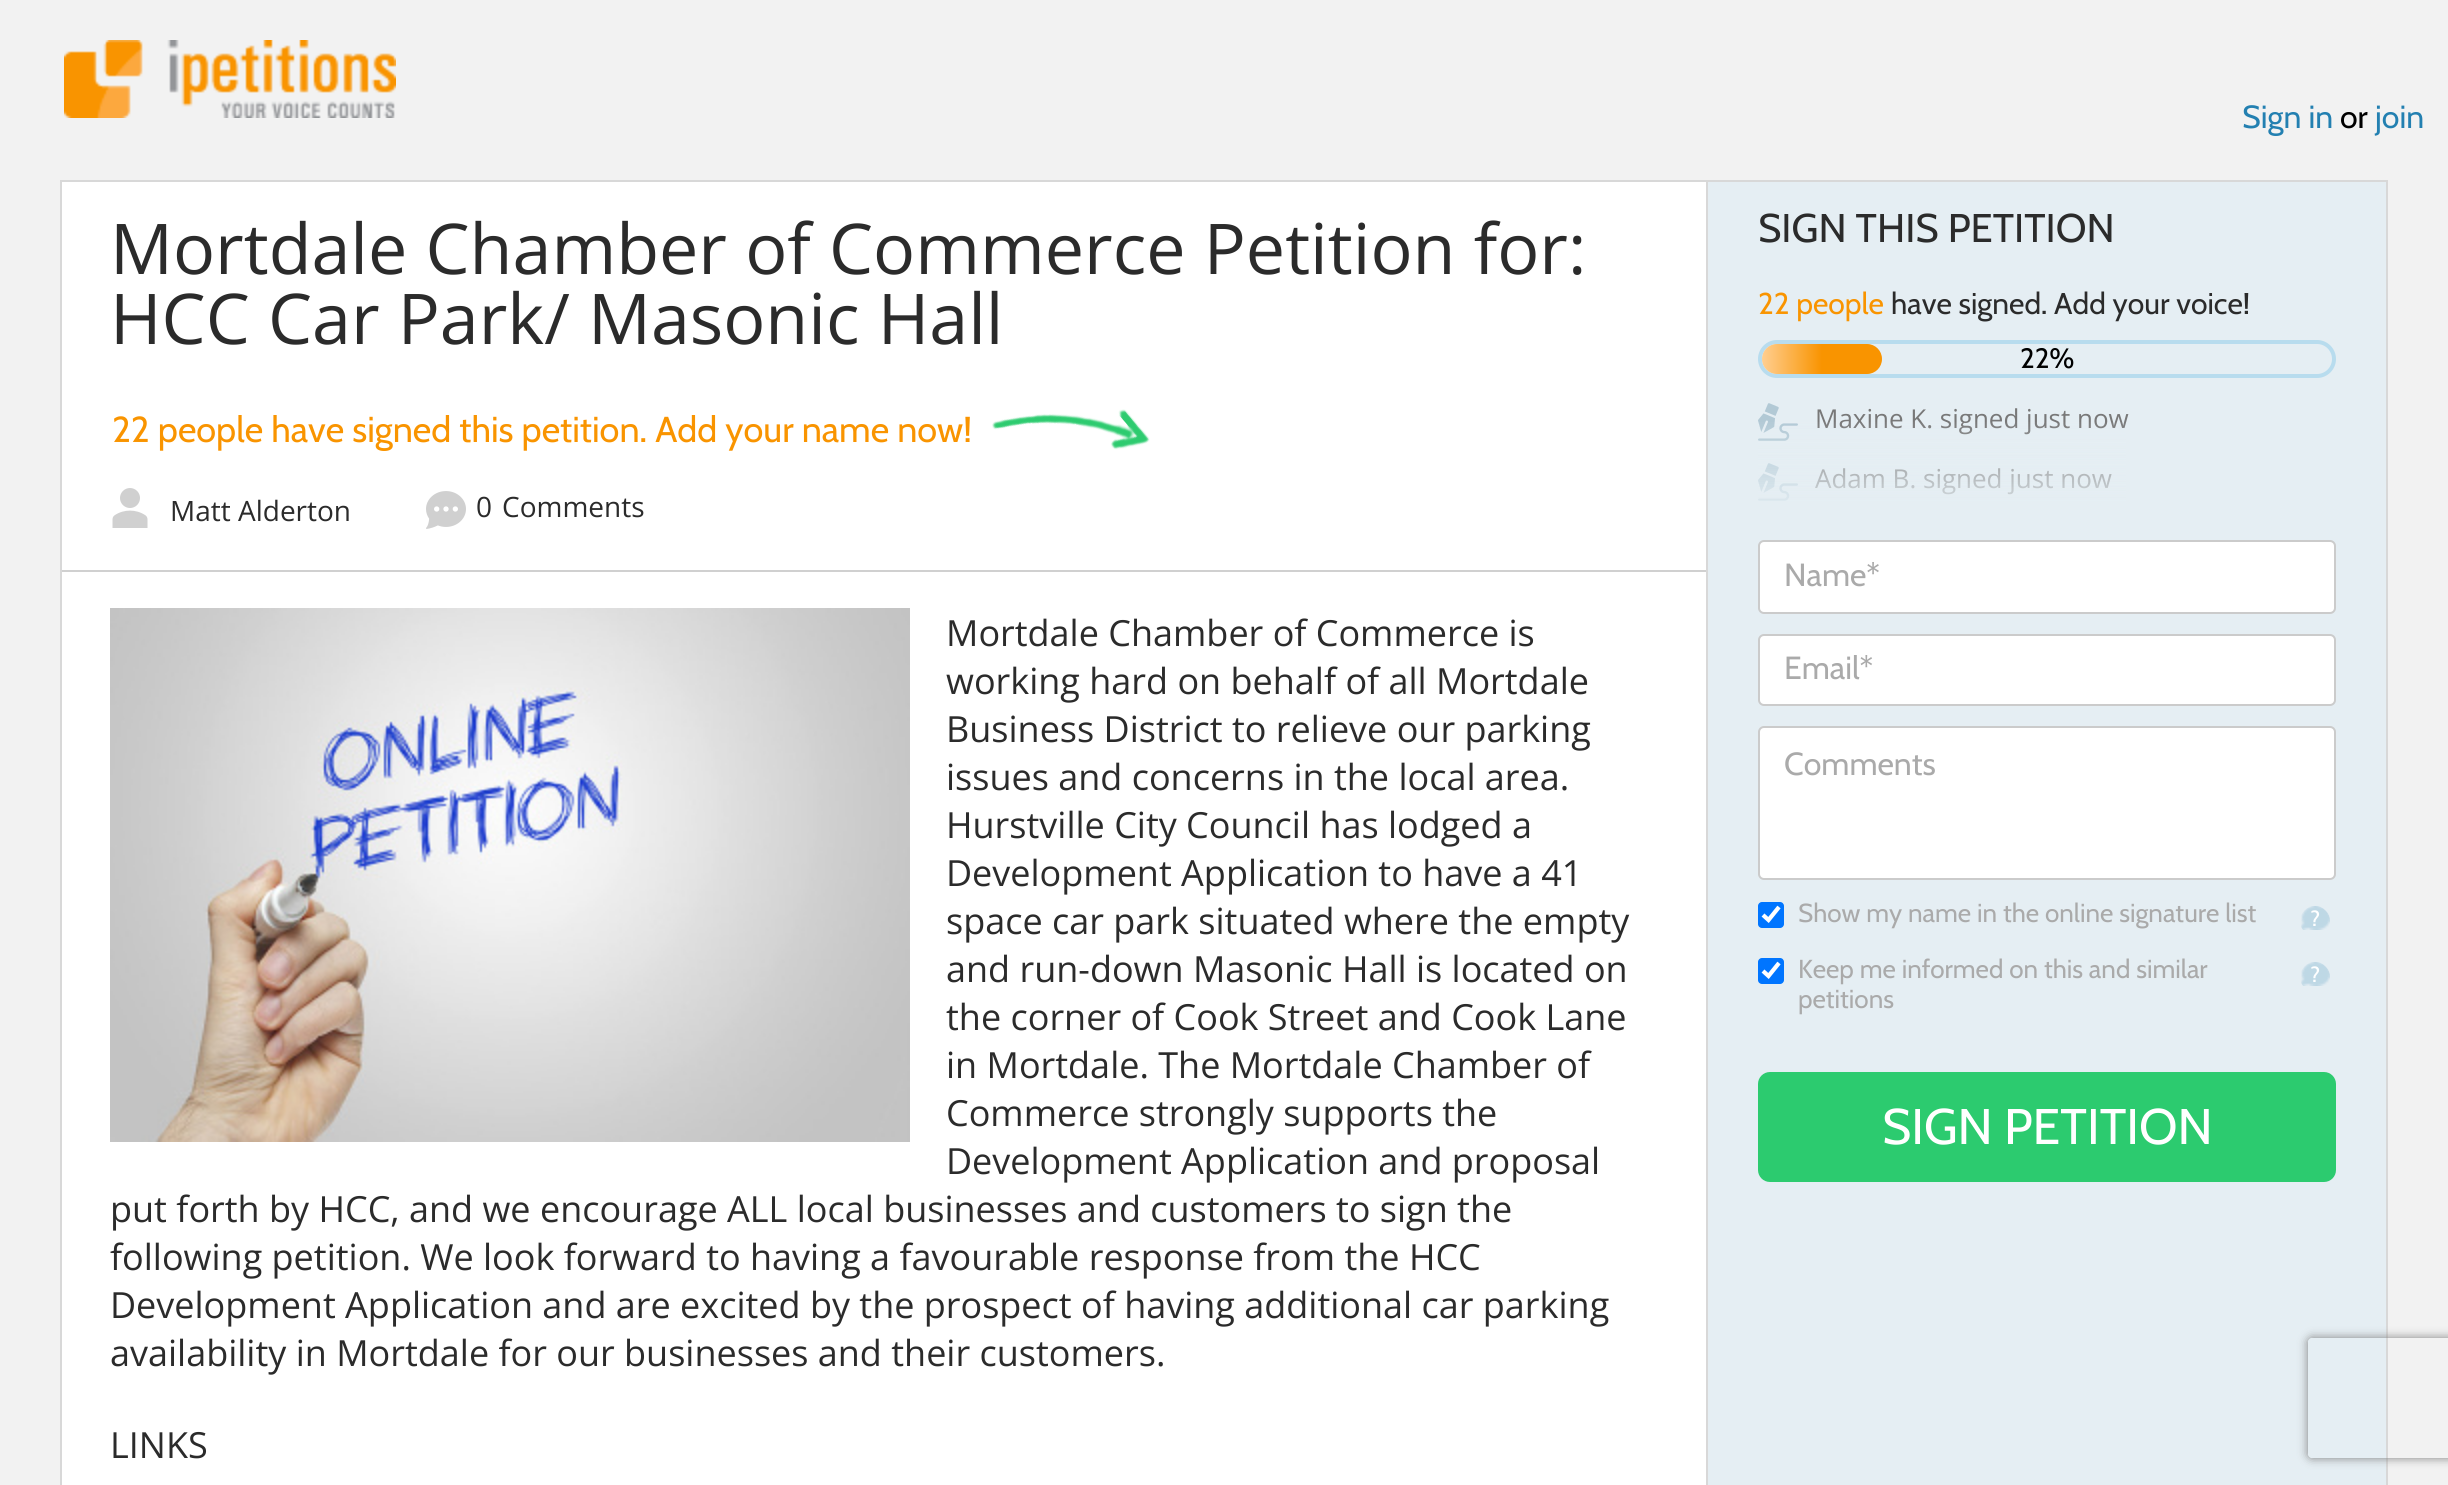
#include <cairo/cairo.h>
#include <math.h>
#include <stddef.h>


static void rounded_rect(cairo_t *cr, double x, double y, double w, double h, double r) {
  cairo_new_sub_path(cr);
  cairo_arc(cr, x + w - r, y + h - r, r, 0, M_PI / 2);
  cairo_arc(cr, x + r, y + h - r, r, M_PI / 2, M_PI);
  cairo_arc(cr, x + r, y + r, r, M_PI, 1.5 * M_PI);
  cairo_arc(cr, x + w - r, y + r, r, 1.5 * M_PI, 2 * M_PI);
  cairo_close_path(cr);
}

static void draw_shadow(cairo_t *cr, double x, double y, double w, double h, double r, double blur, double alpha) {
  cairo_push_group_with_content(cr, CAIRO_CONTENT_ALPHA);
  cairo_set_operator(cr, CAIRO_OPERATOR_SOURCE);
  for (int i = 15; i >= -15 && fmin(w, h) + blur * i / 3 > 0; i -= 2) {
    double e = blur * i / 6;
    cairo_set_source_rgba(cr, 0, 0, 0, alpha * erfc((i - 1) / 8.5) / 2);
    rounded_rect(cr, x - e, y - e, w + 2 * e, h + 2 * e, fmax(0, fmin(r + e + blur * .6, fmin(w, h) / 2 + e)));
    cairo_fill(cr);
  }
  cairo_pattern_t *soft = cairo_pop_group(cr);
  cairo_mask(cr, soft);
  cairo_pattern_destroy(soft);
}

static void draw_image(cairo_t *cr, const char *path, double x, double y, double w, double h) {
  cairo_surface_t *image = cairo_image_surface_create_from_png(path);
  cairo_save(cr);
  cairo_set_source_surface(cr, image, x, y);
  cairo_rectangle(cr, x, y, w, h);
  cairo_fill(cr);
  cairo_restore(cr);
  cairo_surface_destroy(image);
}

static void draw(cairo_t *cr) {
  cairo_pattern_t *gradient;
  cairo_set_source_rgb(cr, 242 / 255.0, 242 / 255.0, 242 / 255.0);
  cairo_paint(cr);
  draw_image(cr, "images/1.png", 64, 40, 332, 78);
  cairo_set_source_rgb(cr, 1, 1, 1);
  cairo_rectangle(cr, 62, 182, 1644, 1303);
  cairo_fill(cr);
  cairo_rectangle(cr, 61, 181, 2326, 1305);
  cairo_set_source_rgb(cr, 216 / 255.0, 216 / 255.0, 216 / 255.0);
  cairo_stroke(cr);
  draw_image(cr, "images/2.png", 992, 409, 158, 41);
  cairo_set_source_rgb(cr, 208 / 255.0, 208 / 255.0, 208 / 255.0);
  cairo_rectangle(cr, 62, 570, 1644, 2);
  cairo_fill(cr);
  draw_image(cr, "images/3.png", 112, 488, 36, 40);
  draw_image(cr, "images/4.png", 426, 491, 40, 38);
  draw_image(cr, "images/5.png", 110, 608, 800, 534);
  cairo_set_source_rgb(cr, 216 / 255.0, 216 / 255.0, 216 / 255.0);
  cairo_rectangle(cr, 1706, 182, 2, 1303);
  cairo_fill(cr);
  cairo_set_source_rgb(cr, 229 / 255.0, 238 / 255.0, 243 / 255.0);
  cairo_rectangle(cr, 1708, 182, 678, 1303);
  cairo_fill(cr);
  rounded_rect(cr, 1760, 342, 574, 34, 17);
  cairo_set_source_rgb(cr, 184 / 255.0, 220 / 255.0, 238 / 255.0);
  cairo_set_line_width(cr, 4);
  cairo_stroke(cr);
  gradient = cairo_pattern_create_linear(1762, 359, 1882, 359);
  cairo_pattern_add_color_stop_rgba(gradient, 0, 1, 206 / 255.0, 144 / 255.0, 1);
  cairo_pattern_add_color_stop_rgba(gradient, 0.5, 249 / 255.0, 148 / 255.0, 0, 1);
  cairo_set_source(cr, gradient);
  cairo_pattern_destroy(gradient);
  rounded_rect(cr, 1762, 344, 120, 30, 15);
  cairo_fill(cr);
  draw_image(cr, "images/6.png", 1758, 403, 40, 38);
  draw_image(cr, "images/6.png", 1758, 463, 40, 38);
  cairo_set_source_rgb(cr, 1, 1, 1);
  rounded_rect(cr, 1759, 541, 576, 72, 5);
  cairo_fill_preserve(cr);
  cairo_set_source_rgb(cr, 203 / 255.0, 203 / 255.0, 203 / 255.0);
  cairo_set_line_width(cr, 2);
  cairo_stroke(cr);
  cairo_set_source_rgb(cr, 1, 1, 1);
  rounded_rect(cr, 1759, 635, 576, 70, 5);
  cairo_fill_preserve(cr);
  cairo_set_source_rgb(cr, 203 / 255.0, 203 / 255.0, 203 / 255.0);
  cairo_stroke(cr);
  cairo_set_source_rgb(cr, 1, 1, 1);
  rounded_rect(cr, 1759, 727, 576, 152, 5);
  cairo_fill_preserve(cr);
  cairo_set_source_rgb(cr, 203 / 255.0, 203 / 255.0, 203 / 255.0);
  cairo_stroke(cr);
  cairo_set_source_rgb(cr, 0, 117 / 255.0, 1);
  rounded_rect(cr, 1758, 902, 26, 26, 4);
  cairo_fill(cr);
  cairo_new_path(cr);
  cairo_move_to(cr, 1763, 915);
  cairo_line_to(cr, 1768.5, 920);
  cairo_line_to(cr, 1779, 907);
  cairo_set_source_rgb(cr, 1, 1, 1);
  cairo_set_line_width(cr, 4.2);
  cairo_stroke(cr);
  draw_image(cr, "images/7.png", 2301, 906, 29, 24);
  cairo_set_source_rgb(cr, 0, 117 / 255.0, 1);
  rounded_rect(cr, 1758, 958, 26, 26, 4);
  cairo_fill(cr);
  cairo_new_path(cr);
  cairo_move_to(cr, 1763, 971);
  cairo_line_to(cr, 1768.5, 976);
  cairo_line_to(cr, 1779, 963);
  cairo_set_source_rgb(cr, 1, 1, 1);
  cairo_stroke(cr);
  draw_image(cr, "images/7.png", 2301, 962, 29, 24);
  cairo_set_source_rgb(cr, 44 / 255.0, 203 / 255.0, 111 / 255.0);
  rounded_rect(cr, 1758, 1072, 578, 110, 12);
  cairo_fill(cr);
  cairo_save(cr);
  cairo_set_fill_rule(cr, CAIRO_FILL_RULE_EVEN_ODD);
  cairo_new_path(cr);
  cairo_move_to(cr, 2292, 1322);
  cairo_line_to(cr, 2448, 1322);
  cairo_line_to(cr, 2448, 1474);
  cairo_line_to(cr, 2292, 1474);
  cairo_close_path(cr);
  cairo_move_to(cr, 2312, 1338);
  cairo_line_to(cr, 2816, 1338);
  cairo_curve_to(cr, 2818, 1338, 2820, 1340, 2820, 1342);
  cairo_line_to(cr, 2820, 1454);
  cairo_curve_to(cr, 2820, 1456, 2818, 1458, 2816, 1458);
  cairo_line_to(cr, 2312, 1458);
  cairo_curve_to(cr, 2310, 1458, 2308, 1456, 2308, 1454);
  cairo_line_to(cr, 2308, 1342);
  cairo_curve_to(cr, 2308, 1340, 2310, 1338, 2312, 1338);
  cairo_close_path(cr);
  cairo_clip(cr);
  cairo_set_source_rgb(cr, 128 / 255.0, 128 / 255.0, 128 / 255.0);
  draw_shadow(cr, 2308, 1338, 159, 120, 4, 5, 1);
  cairo_restore(cr);
  cairo_select_font_face(cr, "Cabin", CAIRO_FONT_SLANT_NORMAL, CAIRO_FONT_WEIGHT_NORMAL);
  cairo_set_font_size(cr, 32);
  cairo_set_source_rgb(cr, 35 / 255.0, 128 / 255.0, 177 / 255.0);
  cairo_move_to(cr, 2242, 128);
  cairo_show_text(cr, "Sign in");
  cairo_set_source_rgb(cr, 0, 0, 0);
  cairo_move_to(cr, 2340, 128);
  cairo_show_text(cr, "or");
  cairo_set_source_rgb(cr, 35 / 255.0, 128 / 255.0, 177 / 255.0);
  cairo_move_to(cr, 2375, 128);
  cairo_show_text(cr, "join");
  cairo_select_font_face(cr, "Open Sans", CAIRO_FONT_SLANT_NORMAL, CAIRO_FONT_WEIGHT_NORMAL);
  cairo_set_font_size(cr, 70);
  cairo_set_source_rgb(cr, 43 / 255.0, 43 / 255.0, 43 / 255.0);
  cairo_move_to(cr, 110, 274);
  cairo_show_text(cr, "Mortdale Chamber of Commerce Petition for:");
  cairo_move_to(cr, 110, 344);
  cairo_show_text(cr, "HCC Car Park/ Masonic Hall");
  cairo_select_font_face(cr, "Cabin", CAIRO_FONT_SLANT_NORMAL, CAIRO_FONT_WEIGHT_NORMAL);
  cairo_set_font_size(cr, 36);
  cairo_set_source_rgb(cr, 249 / 255.0, 148 / 255.0, 0);
  cairo_move_to(cr, 112, 442);
  cairo_show_text(cr, "22 people have signed this petition. Add your name now!");
  cairo_select_font_face(cr, "Open Sans", CAIRO_FONT_SLANT_NORMAL, CAIRO_FONT_WEIGHT_NORMAL);
  cairo_set_font_size(cr, 28);
  cairo_set_source_rgb(cr, 43 / 255.0, 43 / 255.0, 43 / 255.0);
  cairo_move_to(cr, 170, 521);
  cairo_show_text(cr, "Matt Alderton");
  cairo_move_to(cr, 476, 517);
  cairo_show_text(cr, "0");
  cairo_move_to(cr, 502, 517);
  cairo_show_text(cr, "Comments");
  cairo_set_font_size(cr, 36);
  cairo_move_to(cr, 946, 646);
  cairo_show_text(cr, "Mortdale Chamber of Commerce is");
  cairo_move_to(cr, 946, 694);
  cairo_show_text(cr, "working hard on behalf of all Mortdale");
  cairo_move_to(cr, 946, 742);
  cairo_show_text(cr, "Business District to relieve our parking");
  cairo_move_to(cr, 946, 790);
  cairo_show_text(cr, "issues and concerns in the local area.");
  cairo_move_to(cr, 946, 838);
  cairo_show_text(cr, "Hurstville City Council has lodged a");
  cairo_move_to(cr, 946, 886);
  cairo_show_text(cr, "Development Application to have a 41");
  cairo_move_to(cr, 946, 934);
  cairo_show_text(cr, "space car park situated where the empty");
  cairo_move_to(cr, 946, 982);
  cairo_show_text(cr, "and run-down Masonic Hall is located on");
  cairo_move_to(cr, 946, 1030);
  cairo_show_text(cr, "the corner of Cook Street and Cook Lane");
  cairo_move_to(cr, 946, 1078);
  cairo_show_text(cr, "in Mortdale. The Mortdale Chamber of");
  cairo_move_to(cr, 946, 1126);
  cairo_show_text(cr, "Commerce strongly supports the");
  cairo_move_to(cr, 946, 1174);
  cairo_show_text(cr, "Development Application and proposal");
  cairo_move_to(cr, 110, 1222);
  cairo_show_text(cr, "put forth by HCC, and we encourage ALL local businesses and customers to sign the");
  cairo_move_to(cr, 110, 1270);
  cairo_show_text(cr, "following petition. We look forward to having a favourable response from the HCC");
  cairo_move_to(cr, 110, 1318);
  cairo_show_text(cr, "Development Application and are excited by the prospect of having additional car parking");
  cairo_move_to(cr, 110, 1366);
  cairo_show_text(cr, "availability in Mortdale for our businesses and their customers.");
  cairo_move_to(cr, 110, 1458);
  cairo_show_text(cr, "LINKS");
  cairo_select_font_face(cr, "Cabin", CAIRO_FONT_SLANT_NORMAL, CAIRO_FONT_WEIGHT_NORMAL);
  cairo_set_font_size(cr, 40);
  cairo_move_to(cr, 1758, 242);
  cairo_show_text(cr, "SIGN THIS PETITION");
  cairo_set_font_size(cr, 30);
  cairo_set_source_rgb(cr, 249 / 255.0, 148 / 255.0, 0);
  cairo_move_to(cr, 1758, 314);
  cairo_show_text(cr, "22 people");
  cairo_set_source_rgb(cr, 43 / 255.0, 43 / 255.0, 43 / 255.0);
  cairo_move_to(cr, 1891, 314);
  cairo_show_text(cr, "have signed. Add your voice!");
  cairo_set_font_size(cr, 28);
  cairo_set_source_rgb(cr, 0, 0, 0);
  cairo_move_to(cr, 2020, 368);
  cairo_show_text(cr, "22%");
  cairo_select_font_face(cr, "Open Sans", CAIRO_FONT_SLANT_NORMAL, CAIRO_FONT_WEIGHT_NORMAL);
  cairo_set_font_size(cr, 26);
  cairo_set_source_rgb(cr, 120 / 255.0, 120 / 255.0, 120 / 255.0);
  cairo_move_to(cr, 1815, 428);
  cairo_show_text(cr, "Maxine K. signed just now");
  cairo_move_to(cr, 1815, 488);
  cairo_show_text(cr, "Adam B. signed just now");
  gradient = cairo_pattern_create_linear(2047, 420, 2047, 520);
  cairo_pattern_add_color_stop_rgba(gradient, 0, 229 / 255.0, 238 / 255.0, 243 / 255.0, 0);
  cairo_pattern_add_color_stop_rgba(gradient, 1, 229 / 255.0, 238 / 255.0, 243 / 255.0, 1);
  cairo_set_source(cr, gradient);
  cairo_pattern_destroy(gradient);
  cairo_rectangle(cr, 1758, 422, 368, 79);
  cairo_fill(cr);
  cairo_select_font_face(cr, "Cabin", CAIRO_FONT_SLANT_NORMAL, CAIRO_FONT_WEIGHT_NORMAL);
  cairo_set_font_size(cr, 32);
  cairo_set_source_rgb(cr, 170 / 255.0, 170 / 255.0, 170 / 255.0);
  cairo_move_to(cr, 1784, 586);
  cairo_show_text(cr, "Name*");
  cairo_move_to(cr, 1784, 679);
  cairo_show_text(cr, "Email*");
  cairo_move_to(cr, 1784, 775);
  cairo_show_text(cr, "Comments");
  cairo_set_font_size(cr, 26);
  cairo_move_to(cr, 1798, 922);
  cairo_show_text(cr, "Show my name in the online signature list");
  cairo_set_font_size(cr, 22);
  cairo_set_source_rgb(cr, 1, 1, 1);
  cairo_move_to(cr, 2310, 926);
  cairo_show_text(cr, "?");
  cairo_set_font_size(cr, 26);
  cairo_set_source_rgb(cr, 170 / 255.0, 170 / 255.0, 170 / 255.0);
  cairo_move_to(cr, 1798, 978);
  cairo_show_text(cr, "Keep me informed on this and similar");
  cairo_move_to(cr, 1798, 1008);
  cairo_show_text(cr, "petitions");
  cairo_set_font_size(cr, 22);
  cairo_set_source_rgb(cr, 1, 1, 1);
  cairo_move_to(cr, 2310, 982);
  cairo_show_text(cr, "?");
  cairo_set_font_size(cr, 50);
  cairo_move_to(cr, 1882, 1144);
  cairo_show_text(cr, "SIGN PETITION");
}

int main(void) {
  cairo_surface_t *surface = cairo_image_surface_create(CAIRO_FORMAT_RGB24, 2448, 1485);
  cairo_t *cr = cairo_create(surface);
  cairo_font_options_t *options = cairo_font_options_create();
  cairo_font_options_set_hint_metrics(options, CAIRO_HINT_METRICS_OFF);
  cairo_font_options_set_hint_style(options, CAIRO_HINT_STYLE_NONE);
  cairo_set_font_options(cr, options);
  cairo_set_miter_limit(cr, 4);
  draw(cr);
  cairo_surface_write_to_png(surface, "out.png");
  cairo_font_options_destroy(options);
  cairo_destroy(cr);
  cairo_surface_destroy(surface);
  return 0;
}
